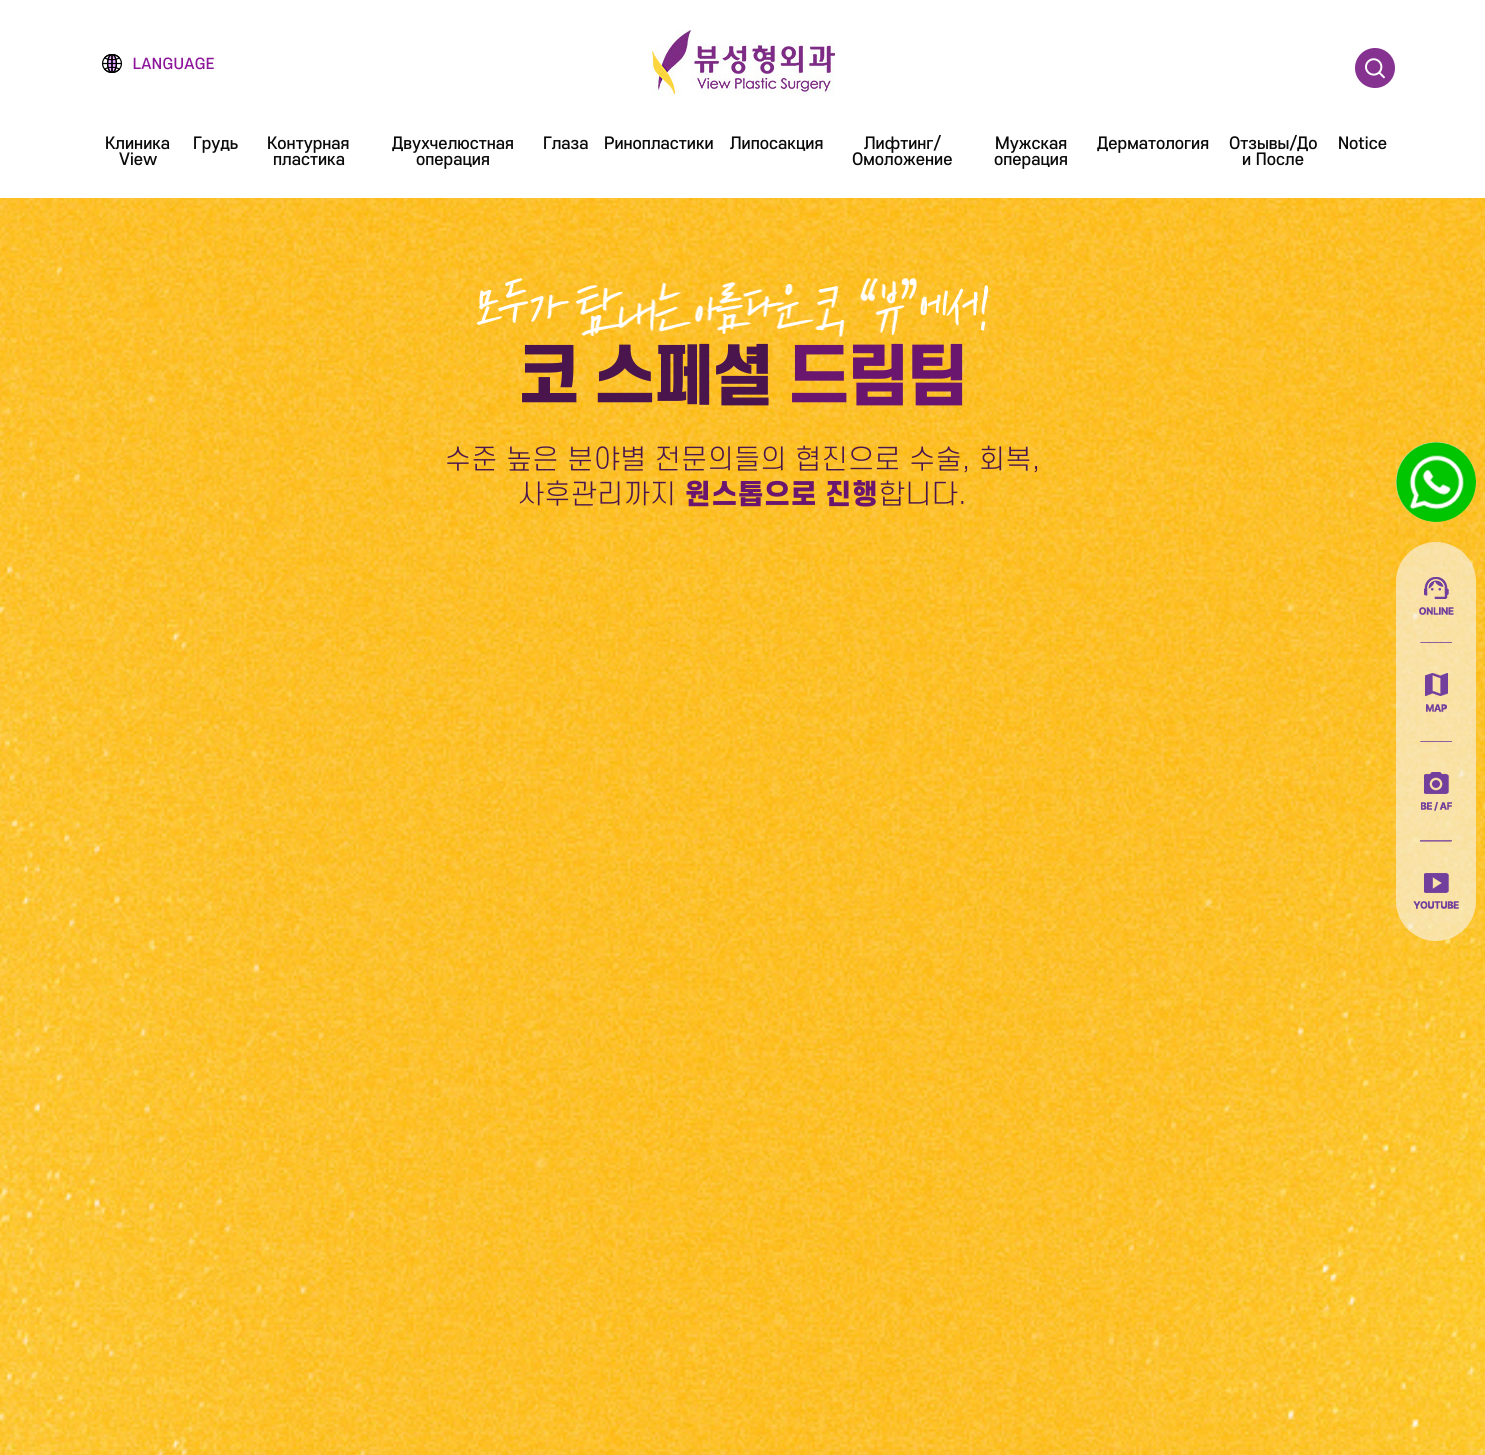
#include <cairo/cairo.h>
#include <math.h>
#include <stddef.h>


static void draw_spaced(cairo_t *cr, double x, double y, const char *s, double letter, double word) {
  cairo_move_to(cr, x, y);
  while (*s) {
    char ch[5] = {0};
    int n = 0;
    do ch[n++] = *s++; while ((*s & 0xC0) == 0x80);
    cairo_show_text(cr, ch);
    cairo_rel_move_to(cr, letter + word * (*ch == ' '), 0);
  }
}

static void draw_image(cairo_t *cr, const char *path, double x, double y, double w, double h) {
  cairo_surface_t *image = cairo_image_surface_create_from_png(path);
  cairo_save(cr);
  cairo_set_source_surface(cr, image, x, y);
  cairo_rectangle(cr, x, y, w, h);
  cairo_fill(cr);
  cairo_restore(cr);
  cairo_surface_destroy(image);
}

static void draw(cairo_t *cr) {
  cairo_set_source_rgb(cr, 1, 1, 1);
  cairo_paint(cr);
  draw_image(cr, "images/1.png", 651, 30, 184, 66);
  cairo_set_source_rgb(cr, 134 / 255.0, 50 / 255.0, 144 / 255.0);
  cairo_arc(cr, 1375, 68, 20, 0, 2 * M_PI);
  cairo_fill(cr);
  draw_image(cr, "images/2.png", 1365, 58, 20, 21);
  draw_image(cr, "images/3.png", 102, 54, 112, 19);
  draw_image(cr, "images/4.png", 0, 198, 1485, 1257);
  draw_image(cr, "images/5.png", 476, 278, 513, 59);
  draw_image(cr, "images/6.png", 1396, 442, 80, 80);
  draw_image(cr, "images/7.png", 1396, 542, 80, 100);
  draw_image(cr, "images/8.png", 1396, 642, 80, 100);
  draw_image(cr, "images/9.png", 1396, 742, 80, 99);
  draw_image(cr, "images/10.png", 1396, 841, 80, 100);
  cairo_select_font_face(cr, "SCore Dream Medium", CAIRO_FONT_SLANT_NORMAL, CAIRO_FONT_WEIGHT_NORMAL);
  cairo_set_font_size(cr, 16);
  cairo_set_source_rgb(cr, 10 / 255.0, 10 / 255.0, 10 / 255.0);
  cairo_move_to(cr, 105, 149);
  cairo_show_text(cr, "Клиника");
  cairo_move_to(cr, 119, 165);
  cairo_show_text(cr, "View");
  cairo_move_to(cr, 193, 149);
  cairo_show_text(cr, "Грудь");
  cairo_move_to(cr, 267, 149);
  cairo_show_text(cr, "Контурная");
  cairo_move_to(cr, 273, 165);
  cairo_show_text(cr, "пластика");
  cairo_move_to(cr, 392, 149);
  cairo_show_text(cr, "Двухчелюстная");
  cairo_move_to(cr, 416, 165);
  cairo_show_text(cr, "операция");
  cairo_move_to(cr, 543, 149);
  cairo_show_text(cr, "Глаза");
  cairo_move_to(cr, 604, 149);
  cairo_show_text(cr, "Ринопластики");
  cairo_move_to(cr, 730, 149);
  cairo_show_text(cr, "Липосакция");
  cairo_move_to(cr, 864, 149);
  cairo_show_text(cr, "Лифтинг/");
  cairo_move_to(cr, 852, 165);
  cairo_show_text(cr, "Омоложение");
  cairo_move_to(cr, 995, 149);
  cairo_show_text(cr, "Мужская");
  cairo_move_to(cr, 994, 165);
  cairo_show_text(cr, "операция");
  cairo_move_to(cr, 1097, 149);
  cairo_show_text(cr, "Дерматология");
  cairo_move_to(cr, 1229, 149);
  cairo_show_text(cr, "Отзывы/До");
  cairo_move_to(cr, 1242, 165);
  cairo_show_text(cr, "и После");
  cairo_move_to(cr, 1338, 149);
  cairo_show_text(cr, "Notice");
  cairo_select_font_face(cr, "SCore Dream Black", CAIRO_FONT_SLANT_NORMAL, CAIRO_FONT_WEIGHT_NORMAL);
  cairo_set_font_size(cr, 65);
  cairo_set_source_rgb(cr, 73 / 255.0, 21 / 255.0, 76 / 255.0);
  draw_spaced(cr, 518, 400, "코 스페셜", -3, 0);
  cairo_set_source_rgb(cr, 106 / 255.0, 22 / 255.0, 111 / 255.0);
  draw_spaced(cr, 788, 400, "드림팀", -3, 0);
  cairo_select_font_face(cr, "SCore Dream Light", CAIRO_FONT_SLANT_NORMAL, CAIRO_FONT_WEIGHT_NORMAL);
  cairo_set_font_size(cr, 27);
  cairo_set_source_rgb(cr, 73 / 255.0, 21 / 255.0, 76 / 255.0);
  draw_spaced(cr, 445, 469, "수준 높은 분야별 전문의들의 협진으로 수술, 회복,", 0.5, 0);
  draw_spaced(cr, 518, 504, "사후관리까지", 0.5, 0);
  cairo_select_font_face(cr, "SCore Dream Black", CAIRO_FONT_SLANT_NORMAL, CAIRO_FONT_WEIGHT_NORMAL);
  cairo_set_source_rgb(cr, 106 / 255.0, 22 / 255.0, 111 / 255.0);
  draw_spaced(cr, 685, 504, "원스톱으로 진행", 0.5, 0);
  cairo_select_font_face(cr, "SCore Dream Light", CAIRO_FONT_SLANT_NORMAL, CAIRO_FONT_WEIGHT_NORMAL);
  cairo_set_source_rgb(cr, 73 / 255.0, 21 / 255.0, 76 / 255.0);
  draw_spaced(cr, 879, 504, "합니다.", 0.5, 0);
}

int main(void) {
  cairo_surface_t *surface = cairo_image_surface_create(CAIRO_FORMAT_RGB24, 1485, 1455);
  cairo_t *cr = cairo_create(surface);
  cairo_font_options_t *options = cairo_font_options_create();
  cairo_font_options_set_hint_metrics(options, CAIRO_HINT_METRICS_OFF);
  cairo_font_options_set_hint_style(options, CAIRO_HINT_STYLE_NONE);
  cairo_set_font_options(cr, options);
  cairo_set_miter_limit(cr, 4);
  draw(cr);
  cairo_surface_write_to_png(surface, "out.png");
  cairo_font_options_destroy(options);
  cairo_destroy(cr);
  cairo_surface_destroy(surface);
  return 0;
}
